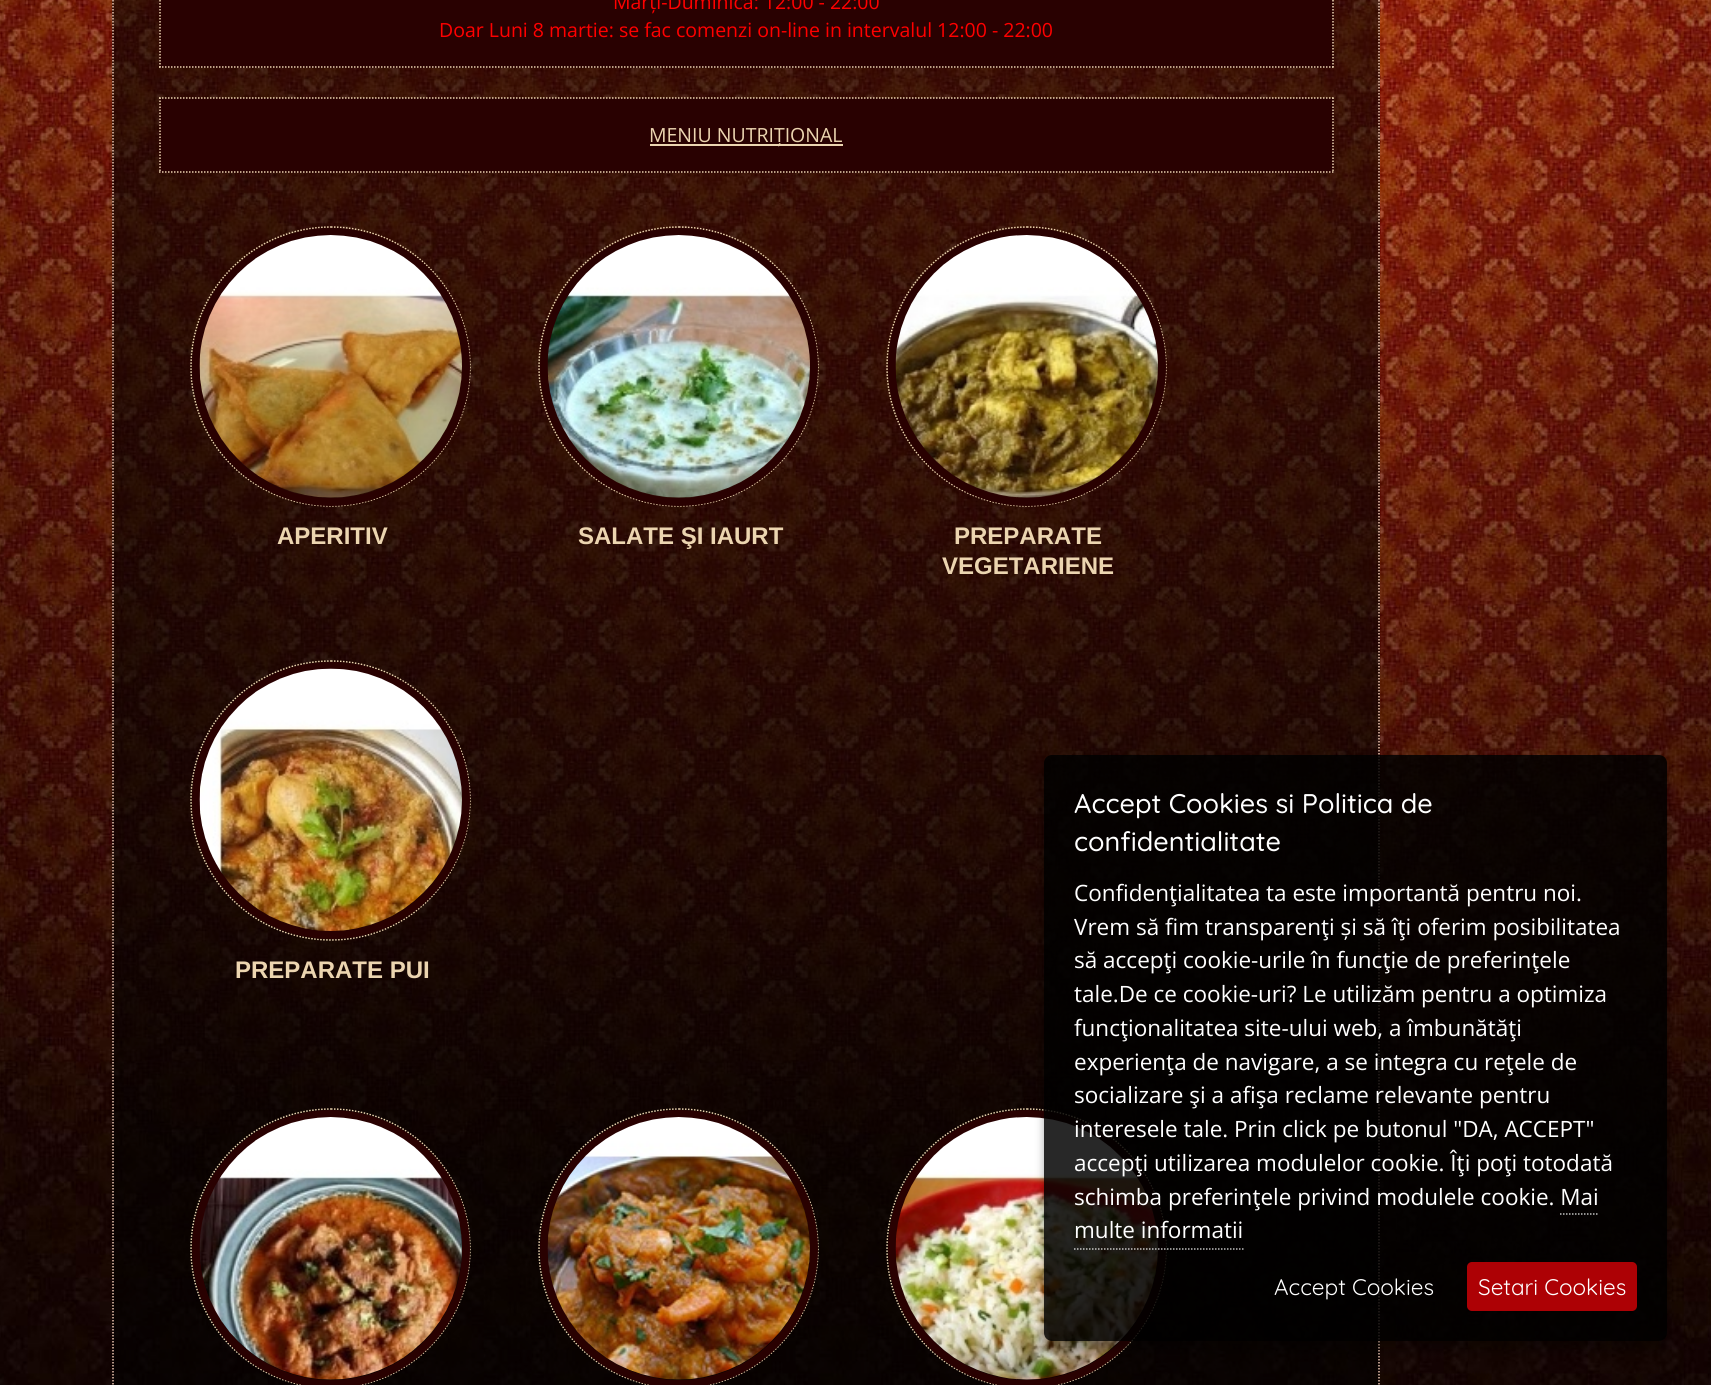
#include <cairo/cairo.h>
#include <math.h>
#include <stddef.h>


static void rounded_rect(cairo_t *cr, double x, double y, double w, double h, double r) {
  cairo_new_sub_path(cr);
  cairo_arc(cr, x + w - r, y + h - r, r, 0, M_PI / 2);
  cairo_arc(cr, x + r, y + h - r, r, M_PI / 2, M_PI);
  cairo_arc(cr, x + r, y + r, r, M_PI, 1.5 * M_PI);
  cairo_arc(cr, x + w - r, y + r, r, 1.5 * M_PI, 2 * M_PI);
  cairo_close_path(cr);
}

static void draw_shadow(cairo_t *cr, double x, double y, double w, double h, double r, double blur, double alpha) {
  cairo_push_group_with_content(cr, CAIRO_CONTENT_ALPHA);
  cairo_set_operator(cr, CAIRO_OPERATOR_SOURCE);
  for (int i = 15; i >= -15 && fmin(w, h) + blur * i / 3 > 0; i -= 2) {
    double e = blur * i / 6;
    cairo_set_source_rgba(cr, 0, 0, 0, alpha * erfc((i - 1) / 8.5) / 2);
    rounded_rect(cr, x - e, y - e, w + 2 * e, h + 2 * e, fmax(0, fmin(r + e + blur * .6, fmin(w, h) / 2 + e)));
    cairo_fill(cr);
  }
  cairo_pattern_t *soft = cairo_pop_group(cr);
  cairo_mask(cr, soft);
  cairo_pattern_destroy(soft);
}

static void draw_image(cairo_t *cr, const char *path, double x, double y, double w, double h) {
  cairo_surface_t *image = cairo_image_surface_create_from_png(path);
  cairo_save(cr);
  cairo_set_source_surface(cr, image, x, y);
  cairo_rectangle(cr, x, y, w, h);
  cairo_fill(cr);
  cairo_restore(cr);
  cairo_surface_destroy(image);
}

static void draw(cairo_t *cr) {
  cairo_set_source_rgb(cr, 1, 1, 1);
  cairo_paint(cr);
  draw_image(cr, "images/1.png", 0, 0, 1711, 1385);
  cairo_set_source_rgba(cr, 0, 0, 0, 0.58);
  cairo_rectangle(cr, 112, 0, 1268, 1385);
  cairo_fill(cr);
  cairo_new_path(cr);
  cairo_move_to(cr, 1379, -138);
  cairo_line_to(cr, 1379, 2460);
  cairo_set_source_rgb(cr, 237 / 255.0, 197 / 255.0, 176 / 255.0);
  cairo_set_line_width(cr, 1.5);
  cairo_set_dash(cr, (double[]){1.5, 1.5}, 2, 0);
  cairo_stroke(cr);
  cairo_new_path(cr);
  cairo_move_to(cr, 113, -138);
  cairo_line_to(cr, 113, 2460);
  cairo_stroke(cr);
  cairo_set_source_rgb(cr, 41 / 255.0, 1 / 255.0, 1 / 255.0);
  cairo_rectangle(cr, 159, 0, 1175, 68);
  cairo_fill(cr);
  cairo_new_path(cr);
  cairo_move_to(cr, 1333, -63);
  cairo_line_to(cr, 1333, 67.5);
  cairo_set_source_rgb(cr, 236 / 255.0, 213 / 255.0, 176 / 255.0);
  cairo_stroke(cr);
  cairo_new_path(cr);
  cairo_move_to(cr, 159, 67);
  cairo_line_to(cr, 1333.5, 67);
  cairo_stroke(cr);
  cairo_new_path(cr);
  cairo_move_to(cr, 160, -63);
  cairo_line_to(cr, 160, 67.5);
  cairo_stroke(cr);
  cairo_set_source_rgb(cr, 41 / 255.0, 1 / 255.0, 1 / 255.0);
  cairo_rectangle(cr, 159, 98, 1175, 75);
  cairo_fill(cr);
  cairo_new_path(cr);
  cairo_move_to(cr, 159, 98);
  cairo_line_to(cr, 1333.5, 98);
  cairo_set_source_rgb(cr, 236 / 255.0, 213 / 255.0, 176 / 255.0);
  cairo_stroke(cr);
  cairo_new_path(cr);
  cairo_move_to(cr, 1333, 97.5);
  cairo_line_to(cr, 1333, 172.5);
  cairo_stroke(cr);
  cairo_new_path(cr);
  cairo_move_to(cr, 159, 172);
  cairo_line_to(cr, 1333.5, 172);
  cairo_stroke(cr);
  cairo_new_path(cr);
  cairo_move_to(cr, 160, 97.5);
  cairo_line_to(cr, 160, 172.5);
  cairo_stroke(cr);
  cairo_rectangle(cr, 650, 144, 193, 2);
  cairo_fill(cr);
  cairo_new_path(cr);
  cairo_move_to(cr, 331, 227);
  cairo_curve_to(cr, 408, 227, 470, 289.5, 470, 367);
  cairo_curve_to(cr, 470, 444, 408, 506, 331, 506);
  cairo_curve_to(cr, 253.5, 506, 191, 444, 191, 367);
  cairo_curve_to(cr, 191, 289.5, 253.5, 227, 331, 227);
  cairo_close_path(cr);
  cairo_stroke(cr);
  cairo_arc(cr, 331, 367, 135, 0, 2 * M_PI);
  cairo_set_source_rgb(cr, 41 / 255.0, 1 / 255.0, 1 / 255.0);
  cairo_set_line_width(cr, 8);
  cairo_set_dash(cr, NULL, 0, 0);
  cairo_stroke(cr);
  draw_image(cr, "images/2.png", 199, 235, 263, 263);
  cairo_new_path(cr);
  cairo_move_to(cr, 679, 227);
  cairo_curve_to(cr, 756, 227, 818, 289.5, 818, 367);
  cairo_curve_to(cr, 818, 444, 756, 506, 679, 506);
  cairo_curve_to(cr, 601.5, 506, 539, 444, 539, 367);
  cairo_curve_to(cr, 539, 289.5, 601.5, 227, 679, 227);
  cairo_close_path(cr);
  cairo_set_source_rgb(cr, 236 / 255.0, 213 / 255.0, 176 / 255.0);
  cairo_set_line_width(cr, 1.5);
  cairo_set_dash(cr, (double[]){1.5, 1.5}, 2, 0);
  cairo_stroke(cr);
  cairo_arc(cr, 679, 367, 135, 0, 2 * M_PI);
  cairo_set_source_rgb(cr, 41 / 255.0, 1 / 255.0, 1 / 255.0);
  cairo_set_line_width(cr, 8);
  cairo_set_dash(cr, NULL, 0, 0);
  cairo_stroke(cr);
  draw_image(cr, "images/3.png", 547, 235, 263, 263);
  cairo_new_path(cr);
  cairo_move_to(cr, 1027, 227);
  cairo_curve_to(cr, 1104, 227, 1166, 289.5, 1166, 367);
  cairo_curve_to(cr, 1166, 444, 1104, 506, 1027, 506);
  cairo_curve_to(cr, 949.5, 506, 887, 444, 887, 367);
  cairo_curve_to(cr, 887, 289.5, 949.5, 227, 1027, 227);
  cairo_close_path(cr);
  cairo_set_source_rgb(cr, 236 / 255.0, 213 / 255.0, 176 / 255.0);
  cairo_set_line_width(cr, 1.5);
  cairo_set_dash(cr, (double[]){1.5, 1.5}, 2, 0);
  cairo_stroke(cr);
  cairo_arc(cr, 1027, 367, 135, 0, 2 * M_PI);
  cairo_set_source_rgb(cr, 41 / 255.0, 1 / 255.0, 1 / 255.0);
  cairo_set_line_width(cr, 8);
  cairo_set_dash(cr, NULL, 0, 0);
  cairo_stroke(cr);
  draw_image(cr, "images/4.png", 895, 235, 263, 263);
  cairo_new_path(cr);
  cairo_move_to(cr, 331, 661);
  cairo_curve_to(cr, 408, 661, 470, 723, 470, 800);
  cairo_curve_to(cr, 470, 877.5, 408, 940, 331, 940);
  cairo_curve_to(cr, 253.5, 940, 191, 877.5, 191, 800);
  cairo_curve_to(cr, 191, 723, 253.5, 661, 331, 661);
  cairo_close_path(cr);
  cairo_set_source_rgb(cr, 236 / 255.0, 213 / 255.0, 176 / 255.0);
  cairo_set_line_width(cr, 1.5);
  cairo_set_dash(cr, (double[]){1.5, 1.5}, 2, 0);
  cairo_stroke(cr);
  rounded_rect(cr, 196, 666, 270, 269, 134.5);
  cairo_set_source_rgb(cr, 41 / 255.0, 1 / 255.0, 1 / 255.0);
  cairo_set_line_width(cr, 8);
  cairo_set_dash(cr, NULL, 0, 0);
  cairo_stroke(cr);
  draw_image(cr, "images/5.png", 199, 668, 263, 263);
  cairo_new_path(cr);
  cairo_move_to(cr, 331, 1109);
  cairo_curve_to(cr, 408, 1109, 470, 1171.5, 470, 1249);
  cairo_curve_to(cr, 470, 1326, 408, 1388, 331, 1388);
  cairo_curve_to(cr, 253.5, 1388, 191, 1326, 191, 1249);
  cairo_curve_to(cr, 191, 1171.5, 253.5, 1109, 331, 1109);
  cairo_close_path(cr);
  cairo_set_source_rgb(cr, 236 / 255.0, 213 / 255.0, 176 / 255.0);
  cairo_set_line_width(cr, 1.5);
  cairo_set_dash(cr, (double[]){1.5, 1.5}, 2, 0);
  cairo_stroke(cr);
  cairo_arc(cr, 331, 1249, 135, 0, 2 * M_PI);
  cairo_set_source_rgb(cr, 41 / 255.0, 1 / 255.0, 1 / 255.0);
  cairo_set_line_width(cr, 8);
  cairo_set_dash(cr, NULL, 0, 0);
  cairo_stroke(cr);
  draw_image(cr, "images/6.png", 199, 1117, 263, 263);
  cairo_new_path(cr);
  cairo_move_to(cr, 679, 1109);
  cairo_curve_to(cr, 756, 1109, 818, 1171.5, 818, 1249);
  cairo_curve_to(cr, 818, 1326, 756, 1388, 679, 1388);
  cairo_curve_to(cr, 601.5, 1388, 539, 1326, 539, 1249);
  cairo_curve_to(cr, 539, 1171.5, 601.5, 1109, 679, 1109);
  cairo_close_path(cr);
  cairo_set_source_rgb(cr, 236 / 255.0, 213 / 255.0, 176 / 255.0);
  cairo_set_line_width(cr, 1.5);
  cairo_set_dash(cr, (double[]){1.5, 1.5}, 2, 0);
  cairo_stroke(cr);
  cairo_arc(cr, 679, 1249, 135, 0, 2 * M_PI);
  cairo_set_source_rgb(cr, 41 / 255.0, 1 / 255.0, 1 / 255.0);
  cairo_set_line_width(cr, 8);
  cairo_set_dash(cr, NULL, 0, 0);
  cairo_stroke(cr);
  draw_image(cr, "images/7.png", 547, 1117, 263, 263);
  cairo_new_path(cr);
  cairo_move_to(cr, 1027, 1109);
  cairo_curve_to(cr, 1104, 1109, 1166, 1171.5, 1166, 1249);
  cairo_curve_to(cr, 1166, 1326, 1104, 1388, 1027, 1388);
  cairo_curve_to(cr, 949.5, 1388, 887, 1326, 887, 1249);
  cairo_curve_to(cr, 887, 1171.5, 949.5, 1109, 1027, 1109);
  cairo_close_path(cr);
  cairo_set_source_rgb(cr, 236 / 255.0, 213 / 255.0, 176 / 255.0);
  cairo_set_line_width(cr, 1.5);
  cairo_set_dash(cr, (double[]){1.5, 1.5}, 2, 0);
  cairo_stroke(cr);
  cairo_arc(cr, 1027, 1249, 135, 0, 2 * M_PI);
  cairo_set_source_rgb(cr, 41 / 255.0, 1 / 255.0, 1 / 255.0);
  cairo_set_line_width(cr, 8);
  cairo_set_dash(cr, NULL, 0, 0);
  cairo_stroke(cr);
  draw_image(cr, "images/8.png", 895, 1117, 263, 263);
  cairo_save(cr);
  cairo_set_fill_rule(cr, CAIRO_FILL_RULE_EVEN_ODD);
  cairo_new_path(cr);
  cairo_move_to(cr, 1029, 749);
  cairo_line_to(cr, 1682, 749);
  cairo_line_to(cr, 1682, 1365);
  cairo_line_to(cr, 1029, 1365);
  cairo_close_path(cr);
  cairo_move_to(cr, 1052, 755);
  cairo_line_to(cr, 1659, 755);
  cairo_curve_to(cr, 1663.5, 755, 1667, 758.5, 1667, 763);
  cairo_line_to(cr, 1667, 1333);
  cairo_curve_to(cr, 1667, 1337.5, 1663.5, 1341, 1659, 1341);
  cairo_line_to(cr, 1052, 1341);
  cairo_curve_to(cr, 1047.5, 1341, 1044, 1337.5, 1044, 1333);
  cairo_line_to(cr, 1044, 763);
  cairo_curve_to(cr, 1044, 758.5, 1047.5, 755, 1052, 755);
  cairo_close_path(cr);
  cairo_clip(cr);
  cairo_set_source_rgb(cr, 0, 0, 0);
  draw_shadow(cr, 1044, 764, 623, 586, 8, 4.5, 0.32);
  cairo_restore(cr);
  cairo_set_source_rgba(cr, 0, 0, 0, 0.84);
  rounded_rect(cr, 1044, 755, 623, 586, 8);
  cairo_fill(cr);
  cairo_new_path(cr);
  cairo_move_to(cr, 1560, 1214);
  cairo_line_to(cr, 1599, 1214);
  cairo_set_source_rgb(cr, 192 / 255.0, 192 / 255.0, 191 / 255.0);
  cairo_set_line_width(cr, 1.5);
  cairo_set_dash(cr, (double[]){1.5, 1.5}, 2, 0);
  cairo_stroke(cr);
  cairo_new_path(cr);
  cairo_move_to(cr, 1074, 1249);
  cairo_line_to(cr, 1243.5, 1249);
  cairo_set_source_rgba(cr, 1, 1, 1, 0.75);
  cairo_stroke(cr);
  cairo_set_source_rgb(cr, 173 / 255.0, 1 / 255.0, 5 / 255.0);
  rounded_rect(cr, 1467, 1262, 170, 49, 5);
  cairo_fill(cr);
  cairo_select_font_face(cr, "Open Sans", CAIRO_FONT_SLANT_NORMAL, CAIRO_FONT_WEIGHT_NORMAL);
  cairo_set_font_size(cr, 19.5);
  cairo_set_source_rgb(cr, 1, 0, 0);
  cairo_move_to(cr, 613, 9);
  cairo_show_text(cr, "Marți-Duminică: 12:00 - 22:00");
  cairo_move_to(cr, 439, 37);
  cairo_show_text(cr, "Doar Luni 8 martie: se fac comenzi on-line in intervalul 12:00 - 22:00");
  cairo_set_source_rgb(cr, 236 / 255.0, 213 / 255.0, 176 / 255.0);
  cairo_move_to(cr, 649, 142);
  cairo_show_text(cr, "MENIU NUTRIȚIONAL");
  cairo_select_font_face(cr, "Liberation Sans", CAIRO_FONT_SLANT_NORMAL, CAIRO_FONT_WEIGHT_BOLD);
  cairo_set_font_size(cr, 24);
  cairo_move_to(cr, 277, 544);
  cairo_show_text(cr, "APERITIV");
  cairo_move_to(cr, 578, 544);
  cairo_show_text(cr, "SALATE ŞI IAURT");
  cairo_move_to(cr, 954, 544);
  cairo_show_text(cr, "PREPARATE");
  cairo_move_to(cr, 942, 574);
  cairo_show_text(cr, "VEGETARIENE");
  cairo_move_to(cr, 235, 978);
  cairo_show_text(cr, "PREPARATE PUI");
  cairo_select_font_face(cr, "Quicksand Medium", CAIRO_FONT_SLANT_NORMAL, CAIRO_FONT_WEIGHT_NORMAL);
  cairo_set_font_size(cr, 27);
  cairo_set_source_rgb(cr, 1, 1, 1);
  cairo_move_to(cr, 1074, 813);
  cairo_show_text(cr, "Accept Cookies si Politica de");
  cairo_move_to(cr, 1074, 851);
  cairo_show_text(cr, "confidentialitate");
  cairo_select_font_face(cr, "Open Sans", CAIRO_FONT_SLANT_NORMAL, CAIRO_FONT_WEIGHT_NORMAL);
  cairo_set_font_size(cr, 22.5);
  cairo_move_to(cr, 1074, 901);
  cairo_show_text(cr, "Confidenţialitatea ta este importantă pentru noi.");
  cairo_move_to(cr, 1074, 935);
  cairo_show_text(cr, "Vrem să fim transparenţi și să îţi oferim posibilitatea");
  cairo_move_to(cr, 1074, 968);
  cairo_show_text(cr, "să accepţi cookie-urile în funcţie de preferinţele");
  cairo_move_to(cr, 1074, 1002);
  cairo_show_text(cr, "tale.De ce cookie-uri? Le utilizăm pentru a optimiza");
  cairo_move_to(cr, 1074, 1036);
  cairo_show_text(cr, "funcţionalitatea site-ului web, a îmbunătăţi");
  cairo_move_to(cr, 1074, 1070);
  cairo_show_text(cr, "experienţa de navigare, a se integra cu reţele de");
  cairo_move_to(cr, 1074, 1103);
  cairo_show_text(cr, "socializare şi a afişa reclame relevante pentru");
  cairo_move_to(cr, 1074, 1137);
  cairo_show_text(cr, "interesele tale. Prin click pe butonul \"DA, ACCEPT\"");
  cairo_move_to(cr, 1074, 1171);
  cairo_show_text(cr, "accepţi utilizarea modulelor cookie. Îţi poţi totodată");
  cairo_move_to(cr, 1074, 1205);
  cairo_show_text(cr, "schimba preferinţele privind modulele cookie. Mai");
  cairo_move_to(cr, 1074, 1238);
  cairo_show_text(cr, "multe informatii");
  cairo_select_font_face(cr, "Quicksand", CAIRO_FONT_SLANT_NORMAL, CAIRO_FONT_WEIGHT_NORMAL);
  cairo_move_to(cr, 1274, 1295);
  cairo_show_text(cr, "Accept Cookies");
  cairo_move_to(cr, 1478, 1295);
  cairo_show_text(cr, "Setari Cookies");
}

int main(void) {
  cairo_surface_t *surface = cairo_image_surface_create(CAIRO_FORMAT_RGB24, 1711, 1385);
  cairo_t *cr = cairo_create(surface);
  cairo_font_options_t *options = cairo_font_options_create();
  cairo_font_options_set_hint_metrics(options, CAIRO_HINT_METRICS_OFF);
  cairo_font_options_set_hint_style(options, CAIRO_HINT_STYLE_NONE);
  cairo_set_font_options(cr, options);
  cairo_set_miter_limit(cr, 4);
  draw(cr);
  cairo_surface_write_to_png(surface, "out.png");
  cairo_font_options_destroy(options);
  cairo_destroy(cr);
  cairo_surface_destroy(surface);
  return 0;
}
